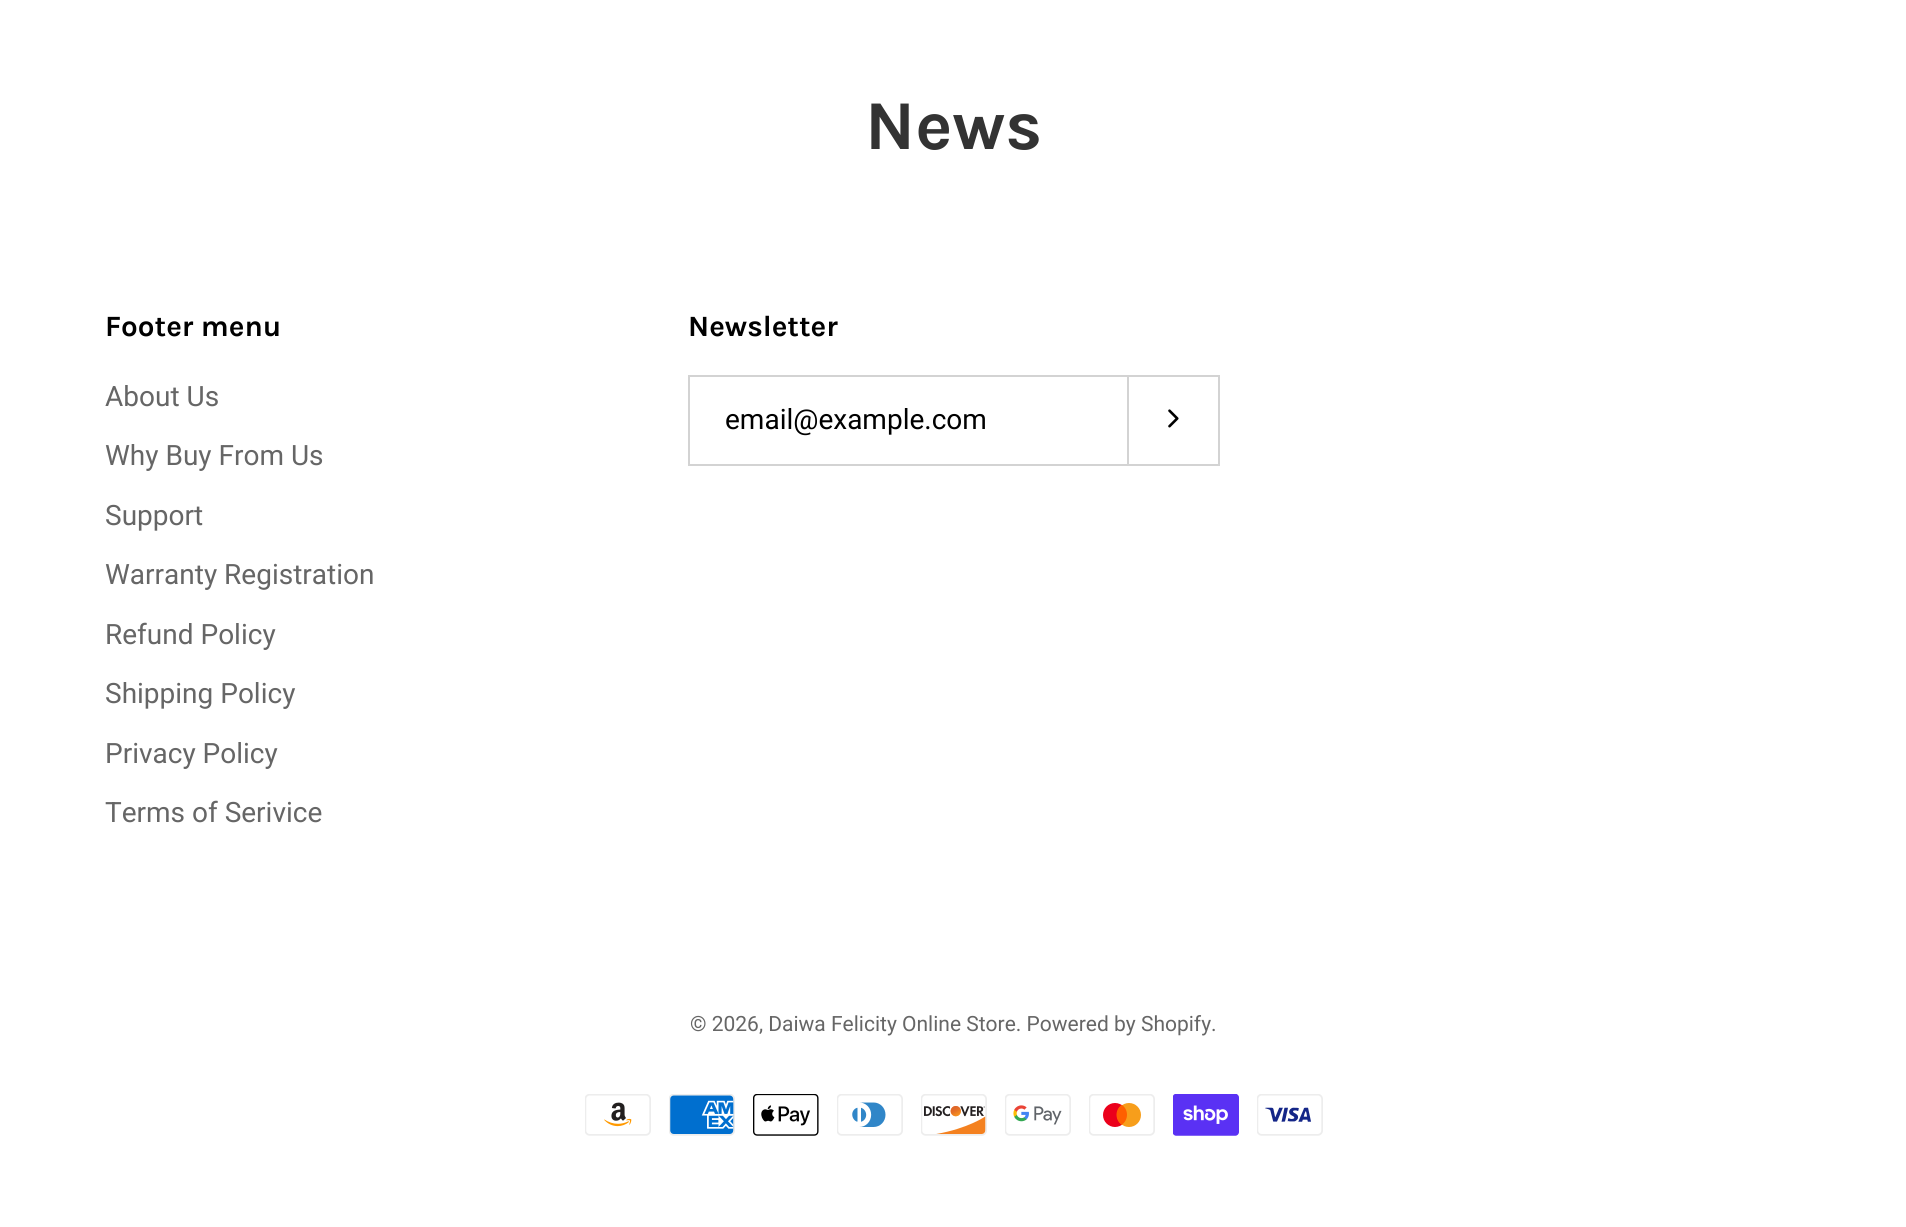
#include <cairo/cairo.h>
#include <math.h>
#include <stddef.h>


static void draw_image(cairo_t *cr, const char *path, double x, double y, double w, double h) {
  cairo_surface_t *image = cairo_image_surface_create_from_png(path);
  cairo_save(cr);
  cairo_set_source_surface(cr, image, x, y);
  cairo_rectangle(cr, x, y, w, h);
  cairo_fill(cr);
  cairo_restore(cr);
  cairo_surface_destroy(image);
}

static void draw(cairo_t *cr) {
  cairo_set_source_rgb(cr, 1, 1, 1);
  cairo_paint(cr);
  cairo_rectangle(cr, 689, 376, 439, 89);
  cairo_set_source_rgb(cr, 211 / 255.0, 211 / 255.0, 211 / 255.0);
  cairo_stroke(cr);
  cairo_rectangle(cr, 1129, 375, 91, 2);
  cairo_fill(cr);
  cairo_rectangle(cr, 1218, 375, 2, 91);
  cairo_fill(cr);
  cairo_rectangle(cr, 1129, 464, 91, 2);
  cairo_fill(cr);
  draw_image(cr, "images/1.png", 1168, 409, 11, 19);
  draw_image(cr, "images/2.png", 585, 1094, 66, 42);
  draw_image(cr, "images/3.png", 669, 1094, 66, 42);
  draw_image(cr, "images/4.png", 753, 1094, 66, 42);
  draw_image(cr, "images/5.png", 837, 1094, 66, 42);
  draw_image(cr, "images/6.png", 921, 1094, 66, 42);
  draw_image(cr, "images/7.png", 1005, 1094, 66, 42);
  draw_image(cr, "images/8.png", 1089, 1094, 66, 42);
  draw_image(cr, "images/9.png", 1173, 1094, 66, 42);
  draw_image(cr, "images/10.png", 1257, 1094, 66, 42);
  cairo_select_font_face(cr, "Karla", CAIRO_FONT_SLANT_NORMAL, CAIRO_FONT_WEIGHT_BOLD);
  cairo_set_font_size(cr, 70);
  cairo_set_source_rgb(cr, 51 / 255.0, 51 / 255.0, 51 / 255.0);
  cairo_move_to(cr, 865, 149);
  cairo_show_text(cr, "News");
  cairo_set_font_size(cr, 29.5);
  cairo_set_source_rgb(cr, 0, 0, 0);
  cairo_move_to(cr, 105, 336);
  cairo_show_text(cr, "Footer menu");
  cairo_select_font_face(cr, "Roboto", CAIRO_FONT_SLANT_NORMAL, CAIRO_FONT_WEIGHT_NORMAL);
  cairo_set_font_size(cr, 28);
  cairo_set_source_rgb(cr, 102 / 255.0, 102 / 255.0, 102 / 255.0);
  cairo_move_to(cr, 105, 406);
  cairo_show_text(cr, "About Us");
  cairo_move_to(cr, 105, 465);
  cairo_show_text(cr, "Why Buy From Us");
  cairo_move_to(cr, 105, 525);
  cairo_show_text(cr, "Support");
  cairo_move_to(cr, 105, 584);
  cairo_show_text(cr, "Warranty Registration");
  cairo_move_to(cr, 105, 644);
  cairo_show_text(cr, "Refund Policy");
  cairo_move_to(cr, 105, 703);
  cairo_show_text(cr, "Shipping Policy");
  cairo_move_to(cr, 105, 763);
  cairo_show_text(cr, "Privacy Policy");
  cairo_move_to(cr, 105, 822);
  cairo_show_text(cr, "Terms of Serivice");
  cairo_select_font_face(cr, "Karla", CAIRO_FONT_SLANT_NORMAL, CAIRO_FONT_WEIGHT_BOLD);
  cairo_set_font_size(cr, 29.5);
  cairo_set_source_rgb(cr, 0, 0, 0);
  cairo_move_to(cr, 688, 336);
  cairo_show_text(cr, "Newsletter");
  cairo_select_font_face(cr, "Roboto", CAIRO_FONT_SLANT_NORMAL, CAIRO_FONT_WEIGHT_NORMAL);
  cairo_set_font_size(cr, 28);
  cairo_move_to(cr, 725, 429);
  cairo_show_text(cr, "email@example.com");
  cairo_set_font_size(cr, 21);
  cairo_set_source_rgb(cr, 102 / 255.0, 102 / 255.0, 102 / 255.0);
  cairo_move_to(cr, 690, 1031);
  cairo_show_text(cr, "© 2026, Daiwa Felicity Online Store. Powered by Shopify.");
}

int main(void) {
  cairo_surface_t *surface = cairo_image_surface_create(CAIRO_FORMAT_RGB24, 1906, 1227);
  cairo_t *cr = cairo_create(surface);
  cairo_font_options_t *options = cairo_font_options_create();
  cairo_font_options_set_hint_metrics(options, CAIRO_HINT_METRICS_OFF);
  cairo_font_options_set_hint_style(options, CAIRO_HINT_STYLE_NONE);
  cairo_set_font_options(cr, options);
  cairo_set_miter_limit(cr, 4);
  draw(cr);
  cairo_surface_write_to_png(surface, "out.png");
  cairo_font_options_destroy(options);
  cairo_destroy(cr);
  cairo_surface_destroy(surface);
  return 0;
}
